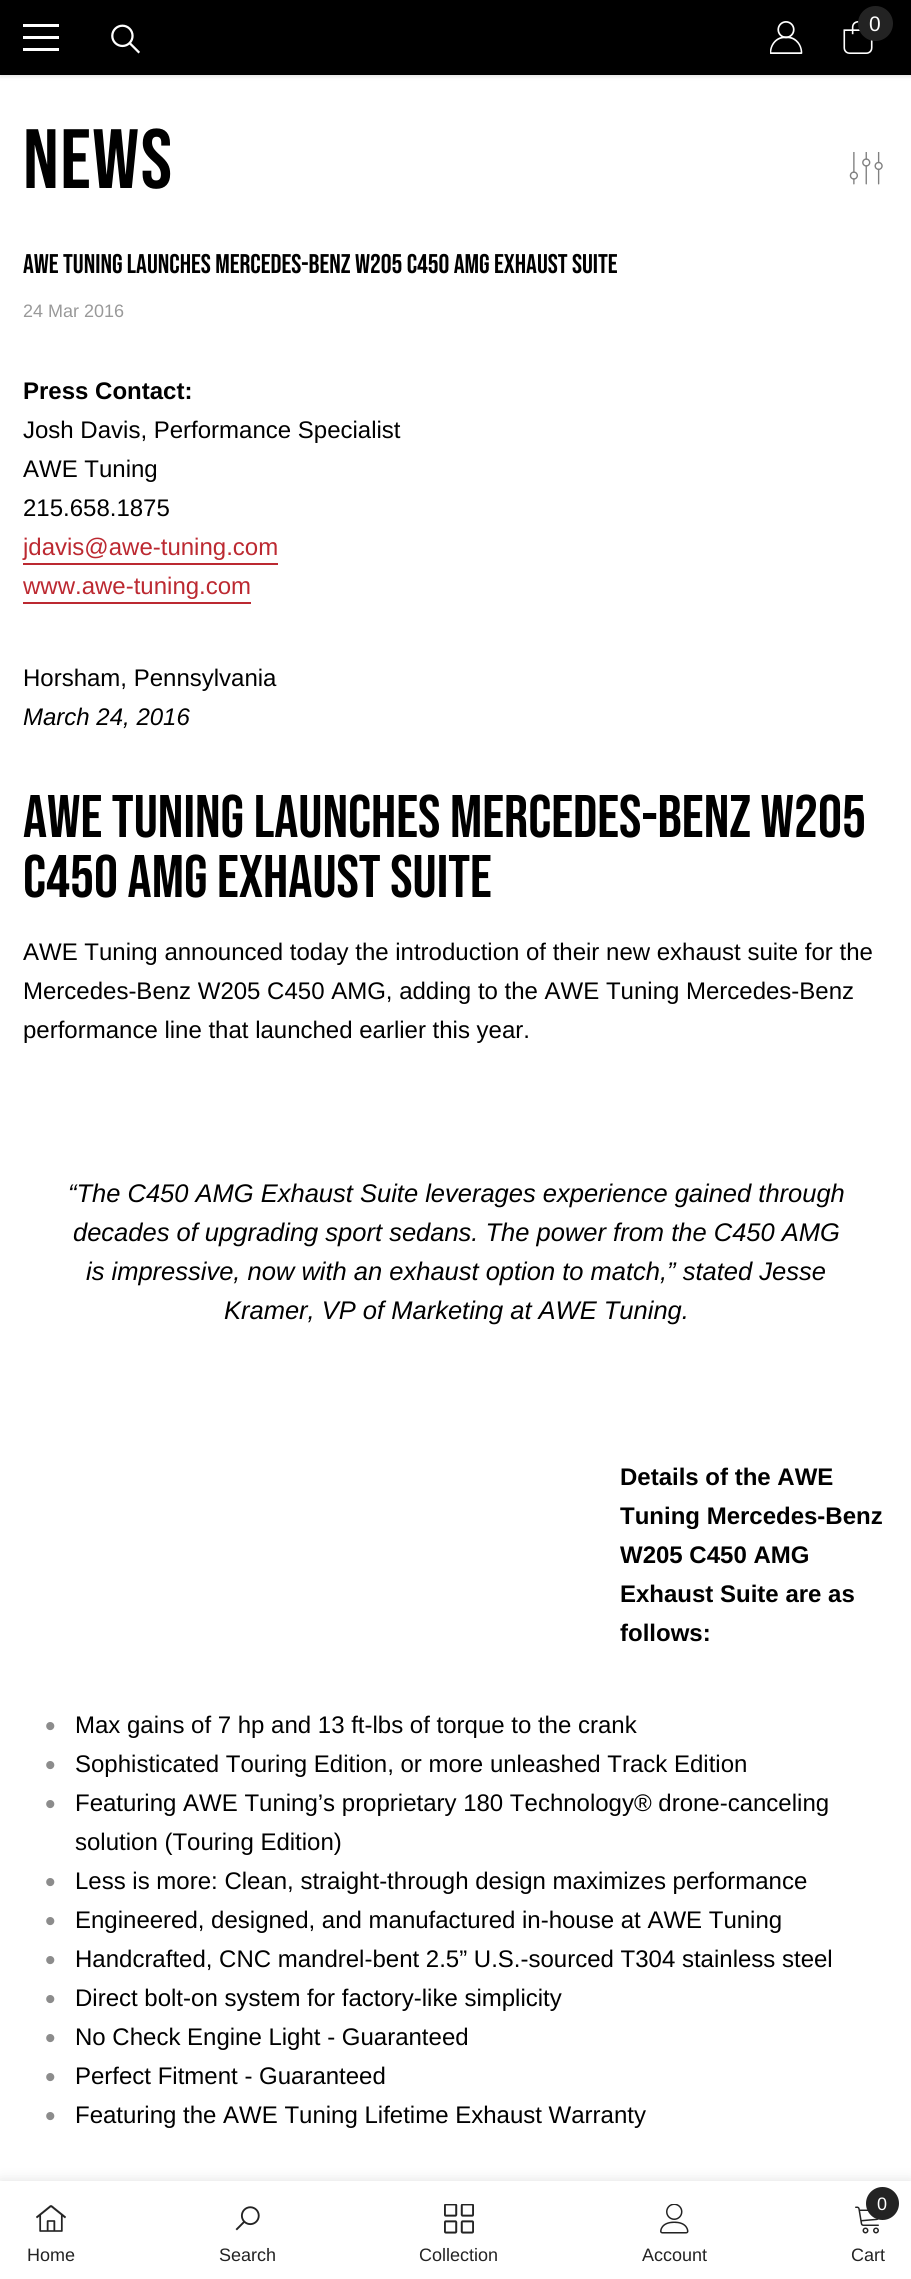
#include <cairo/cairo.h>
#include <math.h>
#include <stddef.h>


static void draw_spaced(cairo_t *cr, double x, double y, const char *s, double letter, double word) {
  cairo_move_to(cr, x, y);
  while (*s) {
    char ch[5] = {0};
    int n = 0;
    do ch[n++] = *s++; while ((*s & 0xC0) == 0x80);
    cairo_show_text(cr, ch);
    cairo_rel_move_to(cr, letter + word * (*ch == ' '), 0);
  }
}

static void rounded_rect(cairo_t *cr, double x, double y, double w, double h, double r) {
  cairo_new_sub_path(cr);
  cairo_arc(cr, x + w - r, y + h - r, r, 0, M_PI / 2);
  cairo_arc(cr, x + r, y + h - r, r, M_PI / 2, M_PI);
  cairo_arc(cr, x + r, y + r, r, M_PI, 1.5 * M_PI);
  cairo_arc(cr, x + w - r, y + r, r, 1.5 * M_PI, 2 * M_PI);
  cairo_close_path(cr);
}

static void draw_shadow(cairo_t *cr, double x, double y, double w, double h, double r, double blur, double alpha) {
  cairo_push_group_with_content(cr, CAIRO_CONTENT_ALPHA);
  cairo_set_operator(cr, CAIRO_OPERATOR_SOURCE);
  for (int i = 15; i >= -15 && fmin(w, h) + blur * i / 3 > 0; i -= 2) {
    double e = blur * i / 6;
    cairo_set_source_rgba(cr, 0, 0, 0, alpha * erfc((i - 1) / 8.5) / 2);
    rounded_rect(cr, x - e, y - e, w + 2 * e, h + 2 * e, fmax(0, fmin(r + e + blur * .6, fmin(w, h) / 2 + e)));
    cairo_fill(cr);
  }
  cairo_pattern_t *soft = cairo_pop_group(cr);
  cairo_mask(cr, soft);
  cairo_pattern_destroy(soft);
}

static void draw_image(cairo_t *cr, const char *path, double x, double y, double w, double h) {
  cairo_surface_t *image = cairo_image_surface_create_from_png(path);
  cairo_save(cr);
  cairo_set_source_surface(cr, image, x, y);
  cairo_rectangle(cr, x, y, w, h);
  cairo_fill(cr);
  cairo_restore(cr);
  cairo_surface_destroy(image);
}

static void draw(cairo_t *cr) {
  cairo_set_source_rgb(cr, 1, 1, 1);
  cairo_paint(cr);
  cairo_set_source_rgb(cr, 0, 0, 0);
  draw_shadow(cr, 0, 2, 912, 75, 0, 2, 0.1);
  cairo_set_source_rgb(cr, 0, 0, 0);
  cairo_rectangle(cr, 0, 0, 911, 75);
  cairo_fill(cr);
  cairo_set_source_rgb(cr, 1, 1, 1);
  cairo_rectangle(cr, 23, 36, 36, 3);
  cairo_fill(cr);
  cairo_rectangle(cr, 23, 24, 36, 3);
  cairo_fill(cr);
  cairo_rectangle(cr, 23, 48, 36, 3);
  cairo_fill(cr);
  draw_image(cr, "images/1.png", 111, 24, 29, 30);
  draw_image(cr, "images/2.png", 770, 21, 33, 33);
  draw_image(cr, "images/3.png", 843, 21, 30, 33);
  cairo_set_source_rgb(cr, 35 / 255.0, 35 / 255.0, 35 / 255.0);
  cairo_arc(cr, 875.5, 23.5, 17.5, 0, 2 * M_PI);
  cairo_fill(cr);
  draw_image(cr, "images/4.png", 849, 152, 34, 33);
  cairo_set_source_rgb(cr, 188 / 255.0, 41 / 255.0, 49 / 255.0);
  cairo_rectangle(cr, 23, 563, 255, 2);
  cairo_fill(cr);
  cairo_rectangle(cr, 23, 602, 228, 2);
  cairo_fill(cr);
  cairo_set_source_rgb(cr, 0, 0, 0);
  draw_shadow(cr, 0, 2181, 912, 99, 0, 7, 0.12);
  cairo_set_source_rgb(cr, 1, 1, 1);
  cairo_rectangle(cr, 0, 2181, 911, 98);
  cairo_fill(cr);
  draw_image(cr, "images/5.png", 36, 2205, 30, 27);
  draw_image(cr, "images/6.png", 235, 2206, 25, 25);
  draw_image(cr, "images/7.png", 444, 2204, 30, 30);
  draw_image(cr, "images/8.png", 660, 2204, 29, 30);
  draw_image(cr, "images/9.png", 855, 2206, 24, 28);
  cairo_set_source_rgb(cr, 35 / 255.0, 35 / 255.0, 35 / 255.0);
  cairo_arc(cr, 882.5, 2203.5, 16.5, 0, 2 * M_PI);
  cairo_fill(cr);
  cairo_select_font_face(cr, "Liberation Sans", CAIRO_FONT_SLANT_NORMAL, CAIRO_FONT_WEIGHT_NORMAL);
  cairo_set_font_size(cr, 21);
  cairo_set_source_rgb(cr, 1, 1, 1);
  cairo_move_to(cr, 869, 31);
  cairo_show_text(cr, "0");
  cairo_select_font_face(cr, "Bebas Neue", CAIRO_FONT_SLANT_NORMAL, CAIRO_FONT_WEIGHT_NORMAL);
  cairo_set_font_size(cr, 84);
  cairo_set_source_rgb(cr, 0, 0, 0);
  draw_spaced(cr, 23, 188, "NEWS", 1.5, 0);
  cairo_set_font_size(cr, 27);
  cairo_move_to(cr, 23, 273);
  cairo_show_text(cr, "AWE TUNING LAUNCHES MERCEDES-BENZ W205 C450 AMG EXHAUST SUITE");
  cairo_select_font_face(cr, "Liberation Sans", CAIRO_FONT_SLANT_NORMAL, CAIRO_FONT_WEIGHT_NORMAL);
  cairo_set_font_size(cr, 18);
  cairo_set_source_rgb(cr, 153 / 255.0, 153 / 255.0, 153 / 255.0);
  cairo_move_to(cr, 23, 317);
  cairo_show_text(cr, "24 Mar 2016");
  cairo_select_font_face(cr, "Liberation Sans", CAIRO_FONT_SLANT_NORMAL, CAIRO_FONT_WEIGHT_BOLD);
  cairo_set_font_size(cr, 24);
  cairo_set_source_rgb(cr, 0, 0, 0);
  cairo_move_to(cr, 23, 399);
  cairo_show_text(cr, "Press Contact:");
  cairo_select_font_face(cr, "Liberation Sans", CAIRO_FONT_SLANT_NORMAL, CAIRO_FONT_WEIGHT_NORMAL);
  cairo_move_to(cr, 23, 438);
  cairo_show_text(cr, "Josh Davis, Performance Specialist");
  cairo_move_to(cr, 23, 477);
  cairo_show_text(cr, "AWE Tuning");
  cairo_move_to(cr, 23, 516);
  cairo_show_text(cr, "215.658.1875");
  cairo_set_source_rgb(cr, 188 / 255.0, 41 / 255.0, 49 / 255.0);
  cairo_move_to(cr, 23, 555);
  cairo_show_text(cr, "jdavis@awe-tuning.com");
  cairo_move_to(cr, 23, 594);
  cairo_show_text(cr, "www.awe-tuning.com");
  cairo_set_source_rgb(cr, 0, 0, 0);
  cairo_move_to(cr, 23, 686);
  cairo_show_text(cr, "Horsham, Pennsylvania");
  cairo_select_font_face(cr, "Liberation Sans", CAIRO_FONT_SLANT_ITALIC, CAIRO_FONT_WEIGHT_NORMAL);
  cairo_move_to(cr, 23, 725);
  cairo_show_text(cr, "March 24, 2016");
  cairo_select_font_face(cr, "Bebas Neue", CAIRO_FONT_SLANT_NORMAL, CAIRO_FONT_WEIGHT_NORMAL);
  cairo_set_font_size(cr, 60);
  cairo_move_to(cr, 23, 837);
  cairo_show_text(cr, "AWE TUNING LAUNCHES MERCEDES-BENZ W205");
  cairo_move_to(cr, 23, 897);
  cairo_show_text(cr, "C450 AMG EXHAUST SUITE");
  cairo_select_font_face(cr, "Liberation Sans", CAIRO_FONT_SLANT_NORMAL, CAIRO_FONT_WEIGHT_NORMAL);
  cairo_set_font_size(cr, 24);
  cairo_move_to(cr, 23, 960);
  cairo_show_text(cr, "AWE Tuning announced today the introduction of their new exhaust suite for the");
  cairo_move_to(cr, 23, 999);
  cairo_show_text(cr, "Mercedes-Benz W205 C450 AMG, adding to the AWE Tuning Mercedes-Benz");
  cairo_move_to(cr, 23, 1038);
  cairo_show_text(cr, "performance line that launched earlier this year.");
  cairo_select_font_face(cr, "Liberation Sans", CAIRO_FONT_SLANT_ITALIC, CAIRO_FONT_WEIGHT_NORMAL);
  cairo_set_font_size(cr, 25.5);
  cairo_move_to(cr, 68, 1202);
  cairo_show_text(cr, "“The C450 AMG Exhaust Suite leverages experience gained through");
  cairo_move_to(cr, 73, 1241);
  cairo_show_text(cr, "decades of upgrading sport sedans. The power from the C450 AMG");
  cairo_move_to(cr, 86, 1280);
  cairo_show_text(cr, "is impressive, now with an exhaust option to match,” stated Jesse");
  cairo_move_to(cr, 224, 1319);
  cairo_show_text(cr, "Kramer, VP of Marketing at AWE Tuning.");
  cairo_select_font_face(cr, "Liberation Sans", CAIRO_FONT_SLANT_NORMAL, CAIRO_FONT_WEIGHT_BOLD);
  cairo_set_font_size(cr, 24);
  cairo_move_to(cr, 620, 1485);
  cairo_show_text(cr, "Details of the AWE");
  cairo_move_to(cr, 620, 1524);
  cairo_show_text(cr, "Tuning Mercedes-Benz");
  cairo_move_to(cr, 620, 1563);
  cairo_show_text(cr, "W205 C450 AMG");
  cairo_move_to(cr, 620, 1602);
  cairo_show_text(cr, "Exhaust Suite are as");
  cairo_move_to(cr, 620, 1641);
  cairo_show_text(cr, "follows:");
  cairo_select_font_face(cr, "Liberation Sans", CAIRO_FONT_SLANT_NORMAL, CAIRO_FONT_WEIGHT_NORMAL);
  cairo_set_font_size(cr, 30);
  cairo_set_source_rgb(cr, 140 / 255.0, 140 / 255.0, 140 / 255.0);
  cairo_move_to(cr, 45, 1736);
  cairo_show_text(cr, "•");
  cairo_set_font_size(cr, 24);
  cairo_set_source_rgb(cr, 0, 0, 0);
  cairo_move_to(cr, 75, 1733);
  cairo_show_text(cr, "Max gains of 7 hp and 13 ft-lbs of torque to the crank");
  cairo_set_font_size(cr, 30);
  cairo_set_source_rgb(cr, 140 / 255.0, 140 / 255.0, 140 / 255.0);
  cairo_move_to(cr, 45, 1775);
  cairo_show_text(cr, "•");
  cairo_set_font_size(cr, 24);
  cairo_set_source_rgb(cr, 0, 0, 0);
  cairo_move_to(cr, 75, 1772);
  cairo_show_text(cr, "Sophisticated Touring Edition, or more unleashed Track Edition");
  cairo_set_font_size(cr, 30);
  cairo_set_source_rgb(cr, 140 / 255.0, 140 / 255.0, 140 / 255.0);
  cairo_move_to(cr, 45, 1814);
  cairo_show_text(cr, "•");
  cairo_set_font_size(cr, 24);
  cairo_set_source_rgb(cr, 0, 0, 0);
  cairo_move_to(cr, 75, 1811);
  cairo_show_text(cr, "Featuring AWE Tuning’s proprietary 180 Technology® drone-canceling");
  cairo_move_to(cr, 75, 1850);
  cairo_show_text(cr, "solution (Touring Edition)");
  cairo_set_font_size(cr, 30);
  cairo_set_source_rgb(cr, 140 / 255.0, 140 / 255.0, 140 / 255.0);
  cairo_move_to(cr, 45, 1892);
  cairo_show_text(cr, "•");
  cairo_set_font_size(cr, 24);
  cairo_set_source_rgb(cr, 0, 0, 0);
  cairo_move_to(cr, 75, 1889);
  cairo_show_text(cr, "Less is more: Clean, straight-through design maximizes performance");
  cairo_set_font_size(cr, 30);
  cairo_set_source_rgb(cr, 140 / 255.0, 140 / 255.0, 140 / 255.0);
  cairo_move_to(cr, 45, 1931);
  cairo_show_text(cr, "•");
  cairo_set_font_size(cr, 24);
  cairo_set_source_rgb(cr, 0, 0, 0);
  cairo_move_to(cr, 75, 1928);
  cairo_show_text(cr, "Engineered, designed, and manufactured in-house at AWE Tuning");
  cairo_set_font_size(cr, 30);
  cairo_set_source_rgb(cr, 140 / 255.0, 140 / 255.0, 140 / 255.0);
  cairo_move_to(cr, 45, 1970);
  cairo_show_text(cr, "•");
  cairo_set_font_size(cr, 24);
  cairo_set_source_rgb(cr, 0, 0, 0);
  cairo_move_to(cr, 75, 1967);
  cairo_show_text(cr, "Handcrafted, CNC mandrel-bent 2.5” U.S.-sourced T304 stainless steel");
  cairo_set_font_size(cr, 30);
  cairo_set_source_rgb(cr, 140 / 255.0, 140 / 255.0, 140 / 255.0);
  cairo_move_to(cr, 45, 2009);
  cairo_show_text(cr, "•");
  cairo_set_font_size(cr, 24);
  cairo_set_source_rgb(cr, 0, 0, 0);
  cairo_move_to(cr, 75, 2006);
  cairo_show_text(cr, "Direct bolt-on system for factory-like simplicity");
  cairo_set_font_size(cr, 30);
  cairo_set_source_rgb(cr, 140 / 255.0, 140 / 255.0, 140 / 255.0);
  cairo_move_to(cr, 45, 2048);
  cairo_show_text(cr, "•");
  cairo_set_font_size(cr, 24);
  cairo_set_source_rgb(cr, 0, 0, 0);
  cairo_move_to(cr, 75, 2045);
  cairo_show_text(cr, "No Check Engine Light - Guaranteed");
  cairo_set_font_size(cr, 30);
  cairo_set_source_rgb(cr, 140 / 255.0, 140 / 255.0, 140 / 255.0);
  cairo_move_to(cr, 45, 2087);
  cairo_show_text(cr, "•");
  cairo_set_font_size(cr, 24);
  cairo_set_source_rgb(cr, 0, 0, 0);
  cairo_move_to(cr, 75, 2084);
  cairo_show_text(cr, "Perfect Fitment - Guaranteed");
  cairo_set_font_size(cr, 30);
  cairo_set_source_rgb(cr, 140 / 255.0, 140 / 255.0, 140 / 255.0);
  cairo_move_to(cr, 45, 2126);
  cairo_show_text(cr, "•");
  cairo_set_font_size(cr, 24);
  cairo_set_source_rgb(cr, 0, 0, 0);
  cairo_move_to(cr, 75, 2123);
  cairo_show_text(cr, "Featuring the AWE Tuning Lifetime Exhaust Warranty");
  cairo_set_font_size(cr, 18);
  cairo_set_source_rgb(cr, 35 / 255.0, 35 / 255.0, 35 / 255.0);
  cairo_move_to(cr, 27, 2261);
  cairo_show_text(cr, "Home");
  cairo_move_to(cr, 219, 2261);
  cairo_show_text(cr, "Search");
  cairo_move_to(cr, 419, 2261);
  cairo_show_text(cr, "Collection");
  cairo_move_to(cr, 642, 2261);
  cairo_show_text(cr, "Account");
  cairo_set_source_rgb(cr, 1, 1, 1);
  cairo_move_to(cr, 877, 2210);
  cairo_show_text(cr, "0");
  cairo_set_source_rgb(cr, 35 / 255.0, 35 / 255.0, 35 / 255.0);
  cairo_move_to(cr, 851, 2261);
  cairo_show_text(cr, "Cart");
}

int main(void) {
  cairo_surface_t *surface = cairo_image_surface_create(CAIRO_FORMAT_RGB24, 911, 2279);
  cairo_t *cr = cairo_create(surface);
  cairo_font_options_t *options = cairo_font_options_create();
  cairo_font_options_set_hint_metrics(options, CAIRO_HINT_METRICS_OFF);
  cairo_font_options_set_hint_style(options, CAIRO_HINT_STYLE_NONE);
  cairo_set_font_options(cr, options);
  cairo_set_miter_limit(cr, 4);
  draw(cr);
  cairo_surface_write_to_png(surface, "out.png");
  cairo_font_options_destroy(options);
  cairo_destroy(cr);
  cairo_surface_destroy(surface);
  return 0;
}
